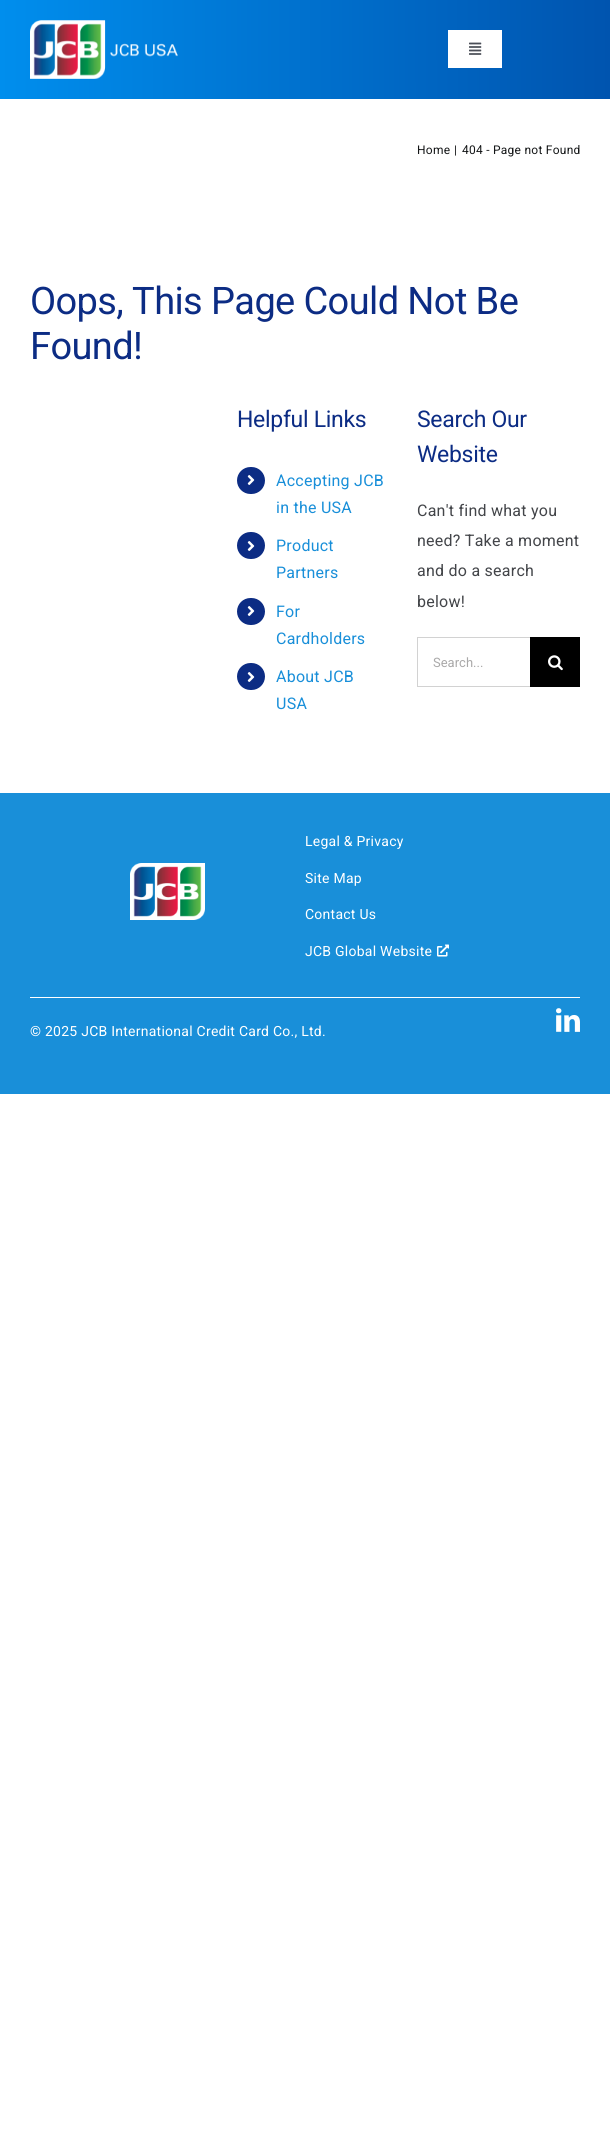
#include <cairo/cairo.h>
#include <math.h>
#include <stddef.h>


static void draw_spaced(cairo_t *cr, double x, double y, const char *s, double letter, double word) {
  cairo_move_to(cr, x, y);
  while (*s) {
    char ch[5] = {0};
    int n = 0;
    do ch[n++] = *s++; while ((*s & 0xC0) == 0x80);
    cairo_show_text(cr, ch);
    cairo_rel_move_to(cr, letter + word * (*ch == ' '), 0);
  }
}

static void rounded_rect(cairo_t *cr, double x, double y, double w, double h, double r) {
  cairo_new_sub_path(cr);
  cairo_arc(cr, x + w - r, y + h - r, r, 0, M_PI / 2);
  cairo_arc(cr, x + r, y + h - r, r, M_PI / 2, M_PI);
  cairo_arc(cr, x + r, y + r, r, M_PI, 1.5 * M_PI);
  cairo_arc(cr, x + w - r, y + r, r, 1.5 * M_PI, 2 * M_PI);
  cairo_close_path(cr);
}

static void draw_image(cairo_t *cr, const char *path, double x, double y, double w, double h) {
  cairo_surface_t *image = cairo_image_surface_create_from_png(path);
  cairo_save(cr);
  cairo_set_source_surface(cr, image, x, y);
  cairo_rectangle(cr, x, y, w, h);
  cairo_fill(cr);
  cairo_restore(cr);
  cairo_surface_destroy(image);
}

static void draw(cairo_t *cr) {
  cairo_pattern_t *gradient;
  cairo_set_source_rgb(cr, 1, 1, 1);
  cairo_paint(cr);
  gradient = cairo_pattern_create_linear(0, 50, 610, 49);
  cairo_pattern_add_color_stop_rgba(gradient, 0, 0, 142 / 255.0, 237 / 255.0, 1);
  cairo_pattern_add_color_stop_rgba(gradient, 1, 0, 84 / 255.0, 175 / 255.0, 1);
  cairo_set_source(cr, gradient);
  cairo_pattern_destroy(gradient);
  cairo_rectangle(cr, 0, 0, 610, 99);
  cairo_fill(cr);
  draw_image(cr, "images/1.png", 30, 20, 148, 59);
  cairo_set_source_rgb(cr, 1, 1, 1);
  cairo_rectangle(cr, 448, 30, 54, 38);
  cairo_fill(cr);
  draw_image(cr, "images/2.png", 469, 42, 13, 13);
  cairo_set_source_rgb(cr, 12 / 255.0, 44 / 255.0, 132 / 255.0);
  rounded_rect(cr, 237, 467, 28, 27, 13.5);
  cairo_fill(cr);
  draw_image(cr, "images/3.png", 247, 475, 8, 10);
  rounded_rect(cr, 237, 532, 28, 27, 13.5);
  cairo_fill(cr);
  draw_image(cr, "images/3.png", 247, 541, 8, 10);
  rounded_rect(cr, 237, 598, 28, 27, 13.5);
  cairo_fill(cr);
  draw_image(cr, "images/3.png", 247, 606, 8, 10);
  rounded_rect(cr, 237, 663, 28, 27, 13.5);
  cairo_fill(cr);
  draw_image(cr, "images/3.png", 247, 672, 8, 10);
  cairo_set_source_rgb(cr, 210 / 255.0, 210 / 255.0, 210 / 255.0);
  cairo_rectangle(cr, 417, 637, 113, 1);
  cairo_fill(cr);
  cairo_rectangle(cr, 417, 686, 113, 1);
  cairo_fill(cr);
  cairo_rectangle(cr, 417, 637, 1, 50);
  cairo_fill(cr);
  cairo_set_source_rgb(cr, 0, 0, 0);
  cairo_rectangle(cr, 530, 637, 50, 50);
  cairo_fill(cr);
  draw_image(cr, "images/4.png", 548, 655, 15, 16);
  cairo_set_source_rgb(cr, 25 / 255.0, 143 / 255.0, 217 / 255.0);
  cairo_rectangle(cr, 0, 793, 610, 301);
  cairo_fill(cr);
  draw_image(cr, "images/5.png", 130, 863, 75, 57);
  draw_image(cr, "images/6.png", 437, 944, 12, 13);
  cairo_set_source_rgb(cr, 1, 1, 1);
  cairo_rectangle(cr, 30, 997, 550, 1);
  cairo_fill(cr);
  draw_image(cr, "images/7.png", 556, 1008, 24, 24);
  cairo_select_font_face(cr, "Roboto", CAIRO_FONT_SLANT_NORMAL, CAIRO_FONT_WEIGHT_NORMAL);
  cairo_set_font_size(cr, 12);
  cairo_set_source_rgb(cr, 20 / 255.0, 22 / 255.0, 23 / 255.0);
  draw_spaced(cr, 417, 154, "Home", 0.25, 0);
  draw_spaced(cr, 454, 154, "|", 0.25, 0);
  draw_spaced(cr, 462, 154, "404 - Page not Found", 0.25, 0);
  cairo_set_font_size(cr, 38);
  cairo_set_source_rgb(cr, 12 / 255.0, 44 / 255.0, 132 / 255.0);
  draw_spaced(cr, 30, 314, "Oops, This Page Could Not Be", -0.6, 0);
  draw_spaced(cr, 30, 359, "Found!", -0.6, 0);
  cairo_set_font_size(cr, 23);
  draw_spaced(cr, 237, 427, "Helpful Links", -0.3, 0);
  cairo_set_font_size(cr, 16);
  cairo_set_source_rgb(cr, 25 / 255.0, 143 / 255.0, 217 / 255.0);
  draw_spaced(cr, 276, 486, "Accepting JCB", 0.25, 0);
  draw_spaced(cr, 276, 513, "in the USA", 0.25, 0);
  draw_spaced(cr, 276, 551, "Product", 0.25, 0);
  draw_spaced(cr, 276, 578, "Partners", 0.25, 0);
  draw_spaced(cr, 276, 617, "For", 0.25, 0);
  draw_spaced(cr, 276, 644, "Cardholders", 0.25, 0);
  draw_spaced(cr, 276, 682, "About JCB", 0.25, 0);
  draw_spaced(cr, 276, 709, "USA", 0.25, 0);
  cairo_set_font_size(cr, 23);
  cairo_set_source_rgb(cr, 12 / 255.0, 44 / 255.0, 132 / 255.0);
  draw_spaced(cr, 417, 427, "Search Our", -0.3, 0);
  draw_spaced(cr, 417, 462, "Website", -0.3, 0);
  cairo_set_font_size(cr, 16);
  cairo_set_source_rgb(cr, 67 / 255.0, 69 / 255.0, 73 / 255.0);
  draw_spaced(cr, 417, 516, "Can't find what you", 0.25, 0);
  draw_spaced(cr, 417, 546, "need? Take a moment", 0.25, 0);
  draw_spaced(cr, 417, 576, "and do a search", 0.25, 0);
  draw_spaced(cr, 417, 607, "below!", 0.25, 0);
  cairo_set_font_size(cr, 13);
  cairo_set_source_rgb(cr, 170 / 255.0, 169 / 255.0, 169 / 255.0);
  cairo_move_to(cr, 433, 667);
  cairo_show_text(cr, "Search...");
  cairo_set_font_size(cr, 14);
  cairo_set_source_rgb(cr, 1, 1, 1);
  draw_spaced(cr, 305, 846, "Legal & Privacy", 0.25, 0);
  draw_spaced(cr, 305, 883, "Site Map", 0.25, 0);
  draw_spaced(cr, 305, 919, "Contact Us", 0.25, 0);
  draw_spaced(cr, 305, 956, "JCB Global Website", 0.25, 0);
  draw_spaced(cr, 30, 1036, "© 2025 JCB International Credit Card Co., Ltd.", 0.25, 0);
}

int main(void) {
  cairo_surface_t *surface = cairo_image_surface_create(CAIRO_FORMAT_RGB24, 610, 2149);
  cairo_t *cr = cairo_create(surface);
  cairo_font_options_t *options = cairo_font_options_create();
  cairo_font_options_set_hint_metrics(options, CAIRO_HINT_METRICS_OFF);
  cairo_font_options_set_hint_style(options, CAIRO_HINT_STYLE_NONE);
  cairo_set_font_options(cr, options);
  cairo_set_miter_limit(cr, 4);
  draw(cr);
  cairo_surface_write_to_png(surface, "out.png");
  cairo_font_options_destroy(options);
  cairo_destroy(cr);
  cairo_surface_destroy(surface);
  return 0;
}
